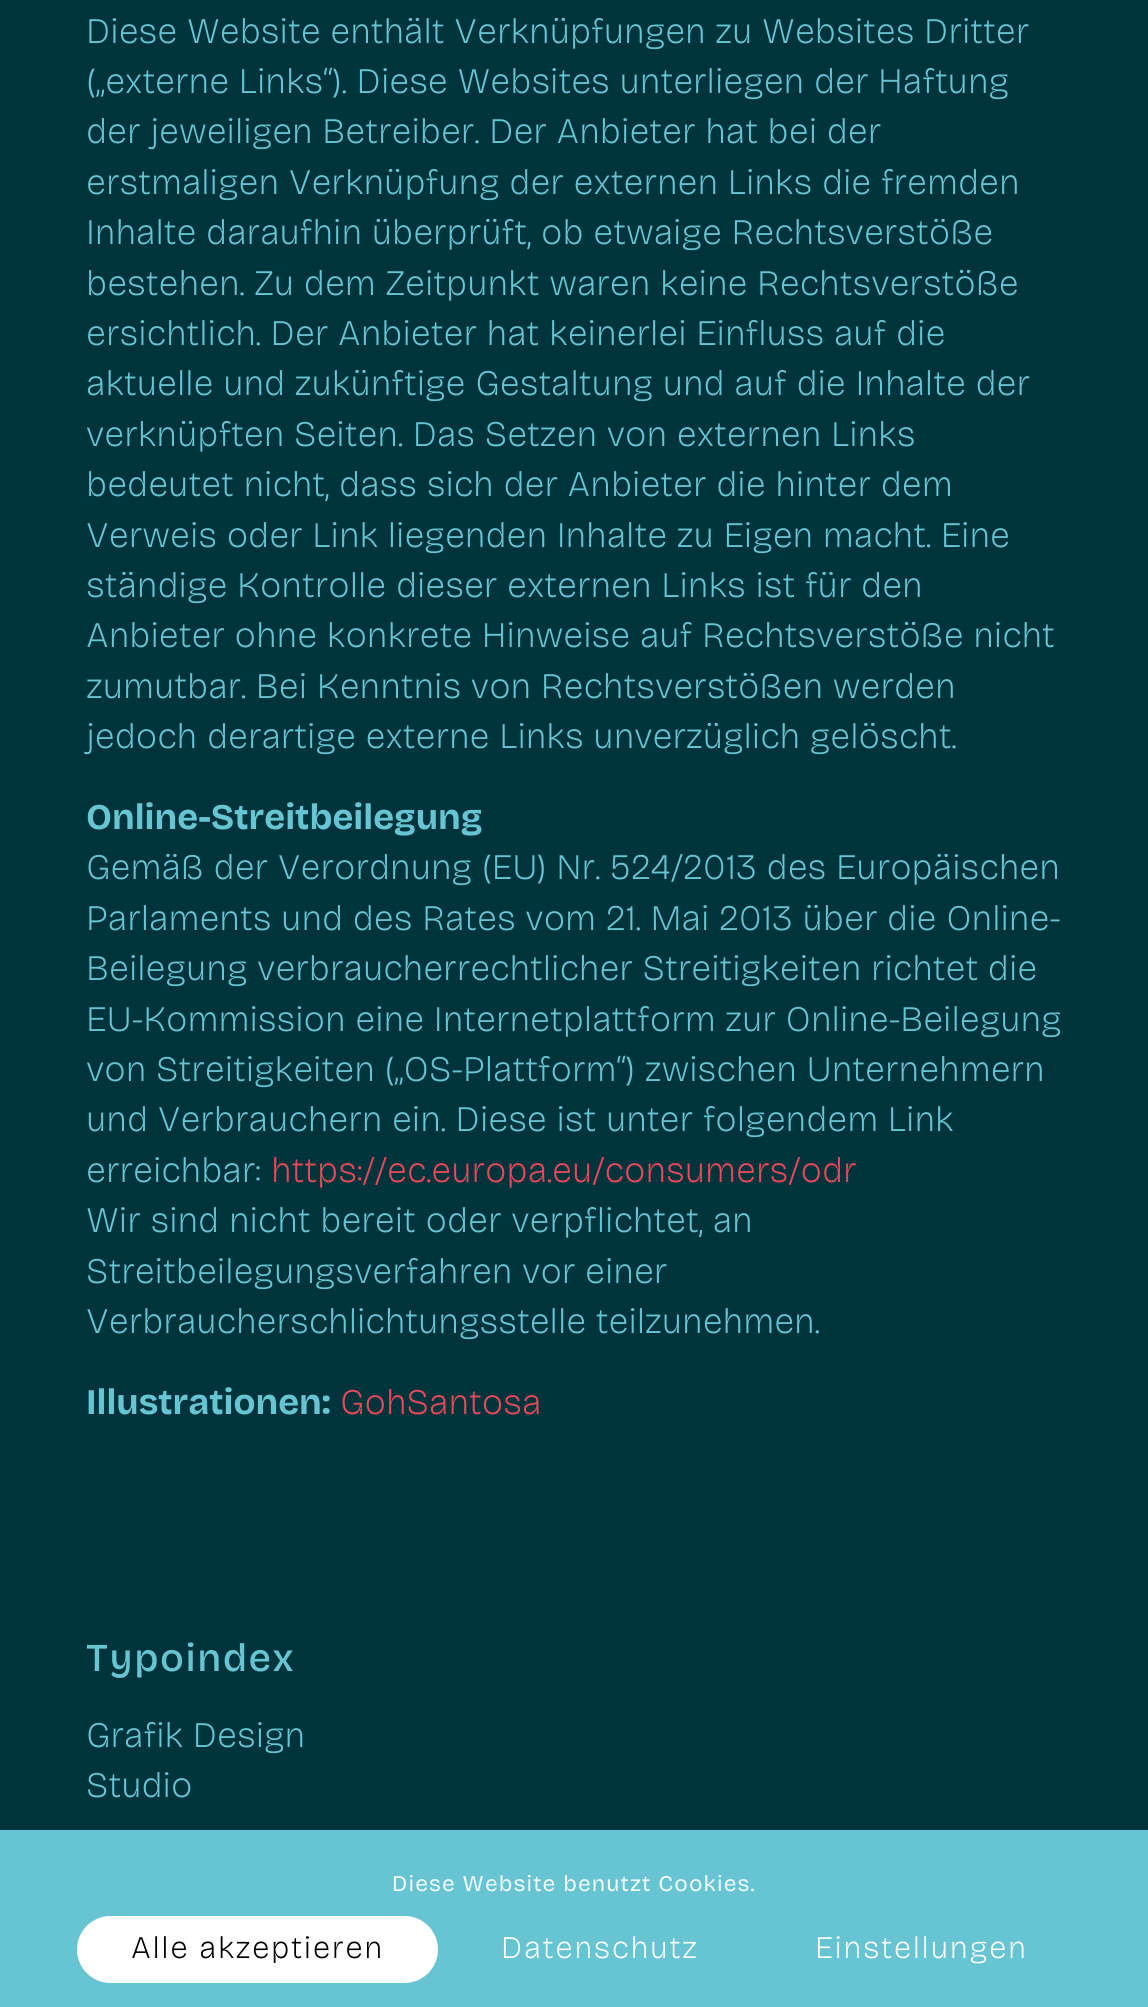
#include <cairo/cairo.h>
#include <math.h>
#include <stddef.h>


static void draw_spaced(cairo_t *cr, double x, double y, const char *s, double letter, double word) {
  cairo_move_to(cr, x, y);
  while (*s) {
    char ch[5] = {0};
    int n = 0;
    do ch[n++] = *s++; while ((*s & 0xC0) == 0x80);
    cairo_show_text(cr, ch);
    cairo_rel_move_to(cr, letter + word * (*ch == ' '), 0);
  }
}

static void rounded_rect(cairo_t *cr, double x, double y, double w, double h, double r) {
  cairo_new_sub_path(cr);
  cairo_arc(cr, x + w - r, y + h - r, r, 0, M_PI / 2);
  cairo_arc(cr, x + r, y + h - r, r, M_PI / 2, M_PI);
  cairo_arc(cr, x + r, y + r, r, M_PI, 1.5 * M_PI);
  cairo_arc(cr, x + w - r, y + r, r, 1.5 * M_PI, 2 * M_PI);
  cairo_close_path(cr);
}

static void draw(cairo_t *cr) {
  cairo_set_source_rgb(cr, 0, 52 / 255.0, 61 / 255.0);
  cairo_paint(cr);
  cairo_set_source_rgb(cr, 103 / 255.0, 196 / 255.0, 210 / 255.0);
  cairo_rectangle(cr, 0, 1830, 1148, 177);
  cairo_fill(cr);
  cairo_set_source_rgb(cr, 1, 1, 1);
  rounded_rect(cr, 77, 1916, 361, 67, 33.5);
  cairo_fill(cr);
  cairo_select_font_face(cr, "Bricolage Grotesque ExtraLight", CAIRO_FONT_SLANT_NORMAL, CAIRO_FONT_WEIGHT_NORMAL);
  cairo_set_font_size(cr, 36);
  cairo_set_source_rgb(cr, 103 / 255.0, 196 / 255.0, 210 / 255.0);
  cairo_move_to(cr, 86, 43);
  cairo_show_text(cr, "Diese Website enthält Verknüpfungen zu Websites Dritter");
  cairo_move_to(cr, 86, 93);
  cairo_show_text(cr, "(„externe Links“). Diese Websites unterliegen der Haftung");
  cairo_move_to(cr, 86, 143);
  cairo_show_text(cr, "der jeweiligen Betreiber. Der Anbieter hat bei der");
  cairo_move_to(cr, 86, 194);
  cairo_show_text(cr, "erstmaligen Verknüpfung der externen Links die fremden");
  cairo_move_to(cr, 86, 244);
  cairo_show_text(cr, "Inhalte daraufhin überprüft, ob etwaige Rechtsverstöße");
  cairo_move_to(cr, 86, 295);
  cairo_show_text(cr, "bestehen. Zu dem Zeitpunkt waren keine Rechtsverstöße");
  cairo_move_to(cr, 86, 345);
  cairo_show_text(cr, "ersichtlich. Der Anbieter hat keinerlei Einfluss auf die");
  cairo_move_to(cr, 86, 395);
  cairo_show_text(cr, "aktuelle und zukünftige Gestaltung und auf die Inhalte der");
  cairo_move_to(cr, 86, 446);
  cairo_show_text(cr, "verknüpften Seiten. Das Setzen von externen Links");
  cairo_move_to(cr, 86, 496);
  cairo_show_text(cr, "bedeutet nicht, dass sich der Anbieter die hinter dem");
  cairo_move_to(cr, 86, 547);
  cairo_show_text(cr, "Verweis oder Link liegenden Inhalte zu Eigen macht. Eine");
  cairo_move_to(cr, 86, 597);
  cairo_show_text(cr, "ständige Kontrolle dieser externen Links ist für den");
  cairo_move_to(cr, 86, 647);
  cairo_show_text(cr, "Anbieter ohne konkrete Hinweise auf Rechtsverstöße nicht");
  cairo_move_to(cr, 86, 698);
  cairo_show_text(cr, "zumutbar. Bei Kenntnis von Rechtsverstößen werden");
  cairo_move_to(cr, 86, 748);
  cairo_show_text(cr, "jedoch derartige externe Links unverzüglich gelöscht.");
  cairo_select_font_face(cr, "Bricolage Grotesque", CAIRO_FONT_SLANT_NORMAL, CAIRO_FONT_WEIGHT_BOLD);
  cairo_move_to(cr, 86, 829);
  cairo_show_text(cr, "Online-Streitbeilegung");
  cairo_select_font_face(cr, "Bricolage Grotesque ExtraLight", CAIRO_FONT_SLANT_NORMAL, CAIRO_FONT_WEIGHT_NORMAL);
  cairo_move_to(cr, 86, 879);
  cairo_show_text(cr, "Gemäß der Verordnung (EU) Nr. 524/2013 des Europäischen");
  cairo_move_to(cr, 86, 930);
  cairo_show_text(cr, "Parlaments und des Rates vom 21. Mai 2013 über die Online-");
  cairo_move_to(cr, 86, 980);
  cairo_show_text(cr, "Beilegung verbraucherrechtlicher Streitigkeiten richtet die");
  cairo_move_to(cr, 86, 1031);
  cairo_show_text(cr, "EU-Kommission eine Internetplattform zur Online-Beilegung");
  cairo_move_to(cr, 86, 1081);
  cairo_show_text(cr, "von Streitigkeiten („OS-Plattform“) zwischen Unternehmern");
  cairo_move_to(cr, 86, 1131);
  cairo_show_text(cr, "und Verbrauchern ein. Diese ist unter folgendem Link");
  cairo_move_to(cr, 86, 1182);
  cairo_show_text(cr, "erreichbar:");
  cairo_set_source_rgb(cr, 235 / 255.0, 72 / 255.0, 88 / 255.0);
  cairo_move_to(cr, 271, 1182);
  cairo_show_text(cr, "https://ec.europa.eu/consumers/odr");
  cairo_set_source_rgb(cr, 103 / 255.0, 196 / 255.0, 210 / 255.0);
  cairo_move_to(cr, 86, 1232);
  cairo_show_text(cr, "Wir sind nicht bereit oder verpflichtet, an");
  cairo_move_to(cr, 86, 1283);
  cairo_show_text(cr, "Streitbeilegungsverfahren vor einer");
  cairo_move_to(cr, 86, 1333);
  cairo_show_text(cr, "Verbraucherschlichtungsstelle teilzunehmen.");
  cairo_select_font_face(cr, "Bricolage Grotesque", CAIRO_FONT_SLANT_NORMAL, CAIRO_FONT_WEIGHT_BOLD);
  cairo_move_to(cr, 86, 1414);
  cairo_show_text(cr, "Illustrationen:");
  cairo_select_font_face(cr, "Bricolage Grotesque ExtraLight", CAIRO_FONT_SLANT_NORMAL, CAIRO_FONT_WEIGHT_NORMAL);
  cairo_set_source_rgb(cr, 235 / 255.0, 72 / 255.0, 88 / 255.0);
  cairo_move_to(cr, 340, 1414);
  cairo_show_text(cr, "GohSantosa");
  cairo_select_font_face(cr, "Bricolage Grotesque Medium", CAIRO_FONT_SLANT_NORMAL, CAIRO_FONT_WEIGHT_NORMAL);
  cairo_set_font_size(cr, 39.5);
  cairo_set_source_rgb(cr, 103 / 255.0, 196 / 255.0, 210 / 255.0);
  draw_spaced(cr, 86, 1671, "Typoindex", 1.5, 0);
  cairo_select_font_face(cr, "Bricolage Grotesque ExtraLight", CAIRO_FONT_SLANT_NORMAL, CAIRO_FONT_WEIGHT_NORMAL);
  cairo_set_font_size(cr, 36);
  cairo_move_to(cr, 86, 1747);
  cairo_show_text(cr, "Grafik Design");
  cairo_move_to(cr, 86, 1797);
  cairo_show_text(cr, "Studio");
  cairo_select_font_face(cr, "Bricolage Grotesque", CAIRO_FONT_SLANT_NORMAL, CAIRO_FONT_WEIGHT_NORMAL);
  cairo_set_font_size(cr, 22.5);
  cairo_set_source_rgb(cr, 240 / 255.0, 249 / 255.0, 251 / 255.0);
  draw_spaced(cr, 392, 1891, "Diese Website benutzt Cookies.", 1.1, 0);
  cairo_select_font_face(cr, "Bricolage Grotesque ExtraLight", CAIRO_FONT_SLANT_NORMAL, CAIRO_FONT_WEIGHT_NORMAL);
  cairo_set_font_size(cr, 31.5);
  cairo_set_source_rgb(cr, 0, 0, 0);
  draw_spaced(cr, 131, 1958, "Alle akzeptieren", 1.6, 0);
  cairo_set_source_rgb(cr, 1, 1, 1);
  draw_spaced(cr, 501, 1958, "Datenschutz", 1.6, 0);
  draw_spaced(cr, 815, 1958, "Einstellungen", 1.6, 0);
}

int main(void) {
  cairo_surface_t *surface = cairo_image_surface_create(CAIRO_FORMAT_RGB24, 1148, 2007);
  cairo_t *cr = cairo_create(surface);
  cairo_font_options_t *options = cairo_font_options_create();
  cairo_font_options_set_hint_metrics(options, CAIRO_HINT_METRICS_OFF);
  cairo_font_options_set_hint_style(options, CAIRO_HINT_STYLE_NONE);
  cairo_set_font_options(cr, options);
  cairo_set_miter_limit(cr, 4);
  draw(cr);
  cairo_surface_write_to_png(surface, "out.png");
  cairo_font_options_destroy(options);
  cairo_destroy(cr);
  cairo_surface_destroy(surface);
  return 0;
}
